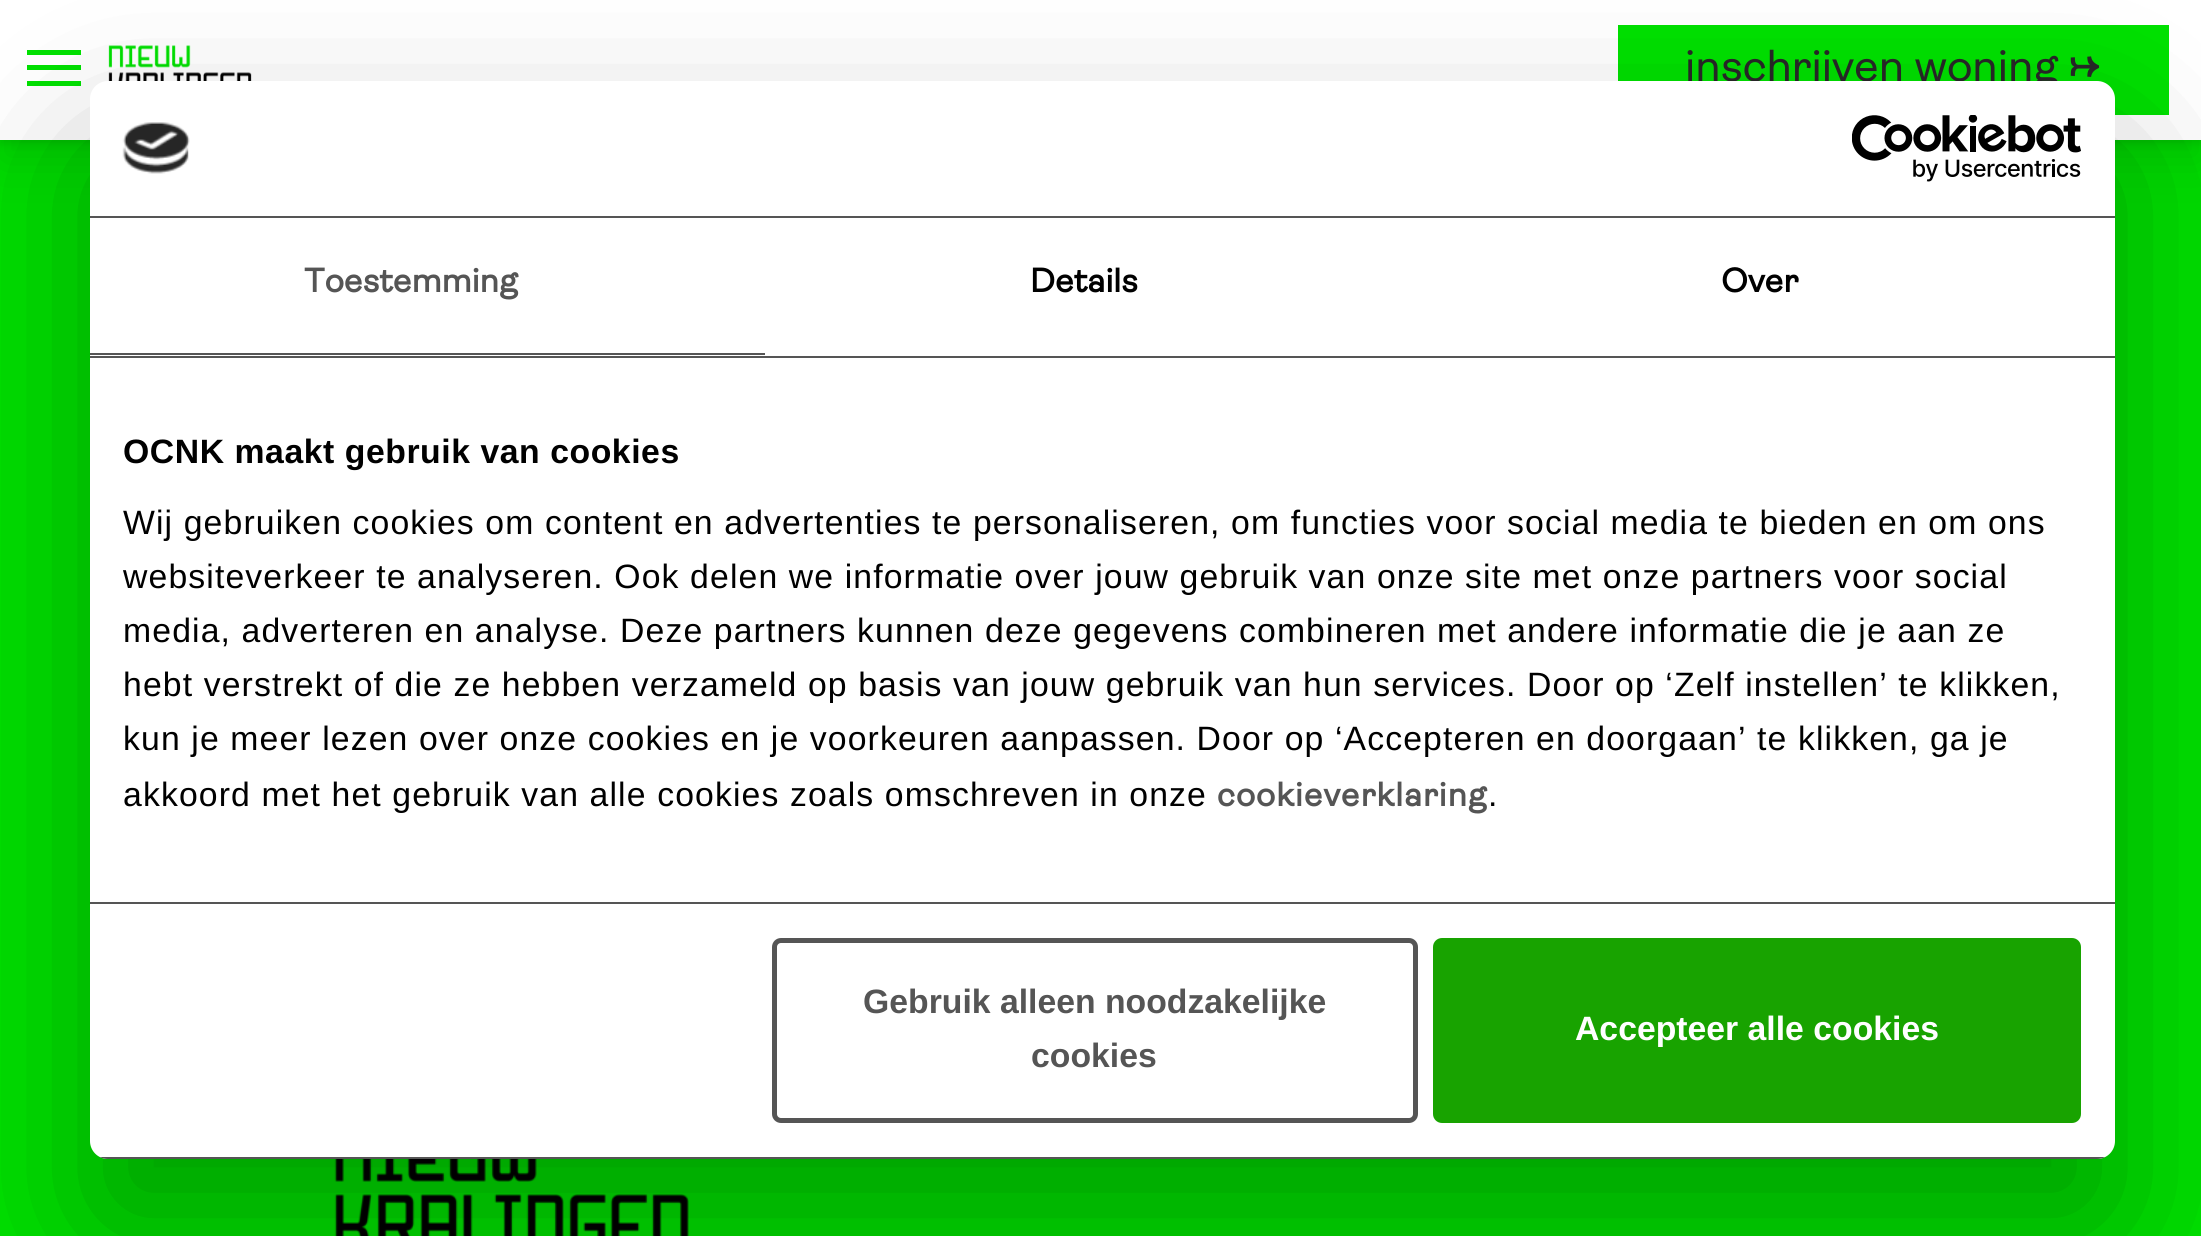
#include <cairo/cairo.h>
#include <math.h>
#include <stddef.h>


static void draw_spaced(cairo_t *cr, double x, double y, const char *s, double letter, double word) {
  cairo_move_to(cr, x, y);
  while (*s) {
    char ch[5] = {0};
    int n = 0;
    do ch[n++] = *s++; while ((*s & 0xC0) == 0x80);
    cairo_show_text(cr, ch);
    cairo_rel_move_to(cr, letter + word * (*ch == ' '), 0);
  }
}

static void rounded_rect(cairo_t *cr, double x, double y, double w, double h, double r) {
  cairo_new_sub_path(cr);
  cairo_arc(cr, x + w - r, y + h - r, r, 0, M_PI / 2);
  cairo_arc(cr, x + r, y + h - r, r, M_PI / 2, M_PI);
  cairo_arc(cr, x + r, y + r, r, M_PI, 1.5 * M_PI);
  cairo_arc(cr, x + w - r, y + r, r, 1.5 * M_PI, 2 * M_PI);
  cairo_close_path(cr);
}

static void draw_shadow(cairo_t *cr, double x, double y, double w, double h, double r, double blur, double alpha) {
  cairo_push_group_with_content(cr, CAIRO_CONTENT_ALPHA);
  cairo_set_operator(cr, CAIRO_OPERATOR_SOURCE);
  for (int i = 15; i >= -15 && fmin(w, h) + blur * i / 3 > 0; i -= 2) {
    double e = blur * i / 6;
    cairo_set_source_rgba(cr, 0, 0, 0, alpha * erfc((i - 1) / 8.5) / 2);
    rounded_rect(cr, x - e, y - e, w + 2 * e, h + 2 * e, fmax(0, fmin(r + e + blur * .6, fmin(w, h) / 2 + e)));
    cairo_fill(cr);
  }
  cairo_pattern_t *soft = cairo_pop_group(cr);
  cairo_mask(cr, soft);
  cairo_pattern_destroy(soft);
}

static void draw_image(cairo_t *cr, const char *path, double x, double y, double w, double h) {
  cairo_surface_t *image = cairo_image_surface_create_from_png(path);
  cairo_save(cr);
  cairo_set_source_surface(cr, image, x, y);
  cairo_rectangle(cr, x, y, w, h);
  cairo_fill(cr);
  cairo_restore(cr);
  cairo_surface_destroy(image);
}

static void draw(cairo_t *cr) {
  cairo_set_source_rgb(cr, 0, 225 / 255.0, 0);
  cairo_paint(cr);
  cairo_set_source_rgb(cr, 0, 0, 0);
  draw_shadow(cr, 0, 23, 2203, 139, 0, 22.5, 0.1);
  draw_shadow(cr, 0, 5, 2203, 139, 0, 4.5, 0.1);
  cairo_set_source_rgb(cr, 1, 1, 1);
  cairo_rectangle(cr, 0, 0, 2201, 140);
  cairo_fill(cr);
  cairo_set_source_rgb(cr, 0, 225 / 255.0, 0);
  cairo_rectangle(cr, 27, 50, 54, 5);
  cairo_fill(cr);
  cairo_rectangle(cr, 27, 65, 54, 5);
  cairo_fill(cr);
  cairo_rectangle(cr, 27, 81, 54, 5);
  cairo_fill(cr);
  draw_image(cr, "images/1.png", 108, 45, 144, 36);
  cairo_rectangle(cr, 1618, 25, 551, 90);
  cairo_fill(cr);
  draw_image(cr, "images/2.png", 334, 1159, 355, 77);
  cairo_set_source_rgb(cr, 0, 0, 0);
  draw_shadow(cr, 90, 153, 2025, 1078, 18, 76.5, 0.3);
  cairo_select_font_face(cr, "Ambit", CAIRO_FONT_SLANT_NORMAL, CAIRO_FONT_WEIGHT_NORMAL);
  cairo_set_font_size(cr, 45);
  cairo_set_source_rgb(cr, 38 / 255.0, 38 / 255.0, 38 / 255.0);
  cairo_move_to(cr, 1685, 81);
  cairo_show_text(cr, "inschrijven woning →");
  cairo_set_source_rgb(cr, 1, 1, 1);
  rounded_rect(cr, 90, 81, 2025, 1078, 18);
  cairo_fill(cr);
  cairo_set_source_rgb(cr, 85 / 255.0, 85 / 255.0, 85 / 255.0);
  cairo_rectangle(cr, 90, 216, 2025, 2);
  cairo_fill(cr);
  draw_image(cr, "images/3.png", 122, 122, 68, 52);
  draw_image(cr, "images/4.png", 1852, 115, 229, 67);
  cairo_rectangle(cr, 90, 356, 2025, 2);
  cairo_fill(cr);
  cairo_rectangle(cr, 90, 353, 675, 2);
  cairo_fill(cr);
  cairo_select_font_face(cr, "Ambit", CAIRO_FONT_SLANT_NORMAL, CAIRO_FONT_WEIGHT_BOLD);
  cairo_set_font_size(cr, 33.75);
  draw_spaced(cr, 304, 292, "Toestemming", 0.25, 0);
  cairo_set_source_rgb(cr, 0, 0, 0);
  draw_spaced(cr, 1030, 292, "Details", 0.25, 0);
  draw_spaced(cr, 1721, 292, "Over", 0.25, 0);
  cairo_set_source_rgb(cr, 85 / 255.0, 85 / 255.0, 85 / 255.0);
  cairo_rectangle(cr, 90, 902, 2025, 2);
  cairo_fill(cr);
  cairo_select_font_face(cr, "Liberation Sans", CAIRO_FONT_SLANT_NORMAL, CAIRO_FONT_WEIGHT_BOLD);
  cairo_set_source_rgb(cr, 0, 0, 0);
  draw_spaced(cr, 123, 463, "OCNK maakt gebruik van cookies", 0.55, 0);
  cairo_select_font_face(cr, "Liberation Sans", CAIRO_FONT_SLANT_NORMAL, CAIRO_FONT_WEIGHT_NORMAL);
  draw_spaced(cr, 123, 534, "Wij gebruiken cookies om content en advertenties te personaliseren, om functies voor social media te bieden en om ons", 1.12, 0);
  draw_spaced(cr, 123, 588, "websiteverkeer te analyseren. Ook delen we informatie over jouw gebruik van onze site met onze partners voor social", 1.12, 0);
  draw_spaced(cr, 123, 642, "media, adverteren en analyse. Deze partners kunnen deze gegevens combineren met andere informatie die je aan ze", 1.12, 0);
  draw_spaced(cr, 123, 696, "hebt verstrekt of die ze hebben verzameld op basis van jouw gebruik van hun services. Door op ‘Zelf instellen’ te klikken,", 1.12, 0);
  draw_spaced(cr, 123, 750, "kun je meer lezen over onze cookies en je voorkeuren aanpassen. Door op ‘Accepteren en doorgaan’ te klikken, ga je", 1.12, 0);
  draw_spaced(cr, 123, 806, "akkoord met het gebruik van alle cookies zoals omschreven in onze", 1.12, 0);
  cairo_select_font_face(cr, "Ambit", CAIRO_FONT_SLANT_NORMAL, CAIRO_FONT_WEIGHT_BOLD);
  cairo_set_source_rgb(cr, 85 / 255.0, 85 / 255.0, 85 / 255.0);
  draw_spaced(cr, 1217, 806, "cookieverklaring", 1.12, 0);
  cairo_select_font_face(cr, "Liberation Sans", CAIRO_FONT_SLANT_NORMAL, CAIRO_FONT_WEIGHT_NORMAL);
  cairo_set_source_rgb(cr, 0, 0, 0);
  draw_spaced(cr, 1488, 806, ".", 1.12, 0);
  cairo_save(cr);
  rounded_rect(cr, 90, 81, 2025, 1078, 18);
  cairo_clip(cr);
  cairo_set_source_rgb(cr, 85 / 255.0, 85 / 255.0, 85 / 255.0);
  cairo_rectangle(cr, 100, 1157, 2005, 2);
  cairo_fill(cr);
  cairo_restore(cr);
  rounded_rect(cr, 774.5, 940.5, 641, 180, 6.5);
  cairo_set_source_rgb(cr, 85 / 255.0, 85 / 255.0, 85 / 255.0);
  cairo_set_line_width(cr, 5);
  cairo_stroke(cr);
  cairo_select_font_face(cr, "Liberation Sans", CAIRO_FONT_SLANT_NORMAL, CAIRO_FONT_WEIGHT_BOLD);
  cairo_move_to(cr, 863, 1013);
  cairo_show_text(cr, "Gebruik alleen noodzakelijke");
  cairo_move_to(cr, 1031, 1067);
  cairo_show_text(cr, "cookies");
  cairo_set_source_rgb(cr, 24 / 255.0, 163 / 255.0, 0);
  rounded_rect(cr, 1435.5, 940.5, 643, 180, 6.5);
  cairo_fill_preserve(cr);
  cairo_stroke(cr);
  cairo_set_source_rgb(cr, 1, 1, 1);
  cairo_move_to(cr, 1575, 1040);
  cairo_show_text(cr, "Accepteer alle cookies");
}

int main(void) {
  cairo_surface_t *surface = cairo_image_surface_create(CAIRO_FORMAT_RGB24, 2201, 1236);
  cairo_t *cr = cairo_create(surface);
  cairo_font_options_t *options = cairo_font_options_create();
  cairo_font_options_set_hint_metrics(options, CAIRO_HINT_METRICS_OFF);
  cairo_font_options_set_hint_style(options, CAIRO_HINT_STYLE_NONE);
  cairo_set_font_options(cr, options);
  cairo_set_miter_limit(cr, 4);
  draw(cr);
  cairo_surface_write_to_png(surface, "out.png");
  cairo_font_options_destroy(options);
  cairo_destroy(cr);
  cairo_surface_destroy(surface);
  return 0;
}
